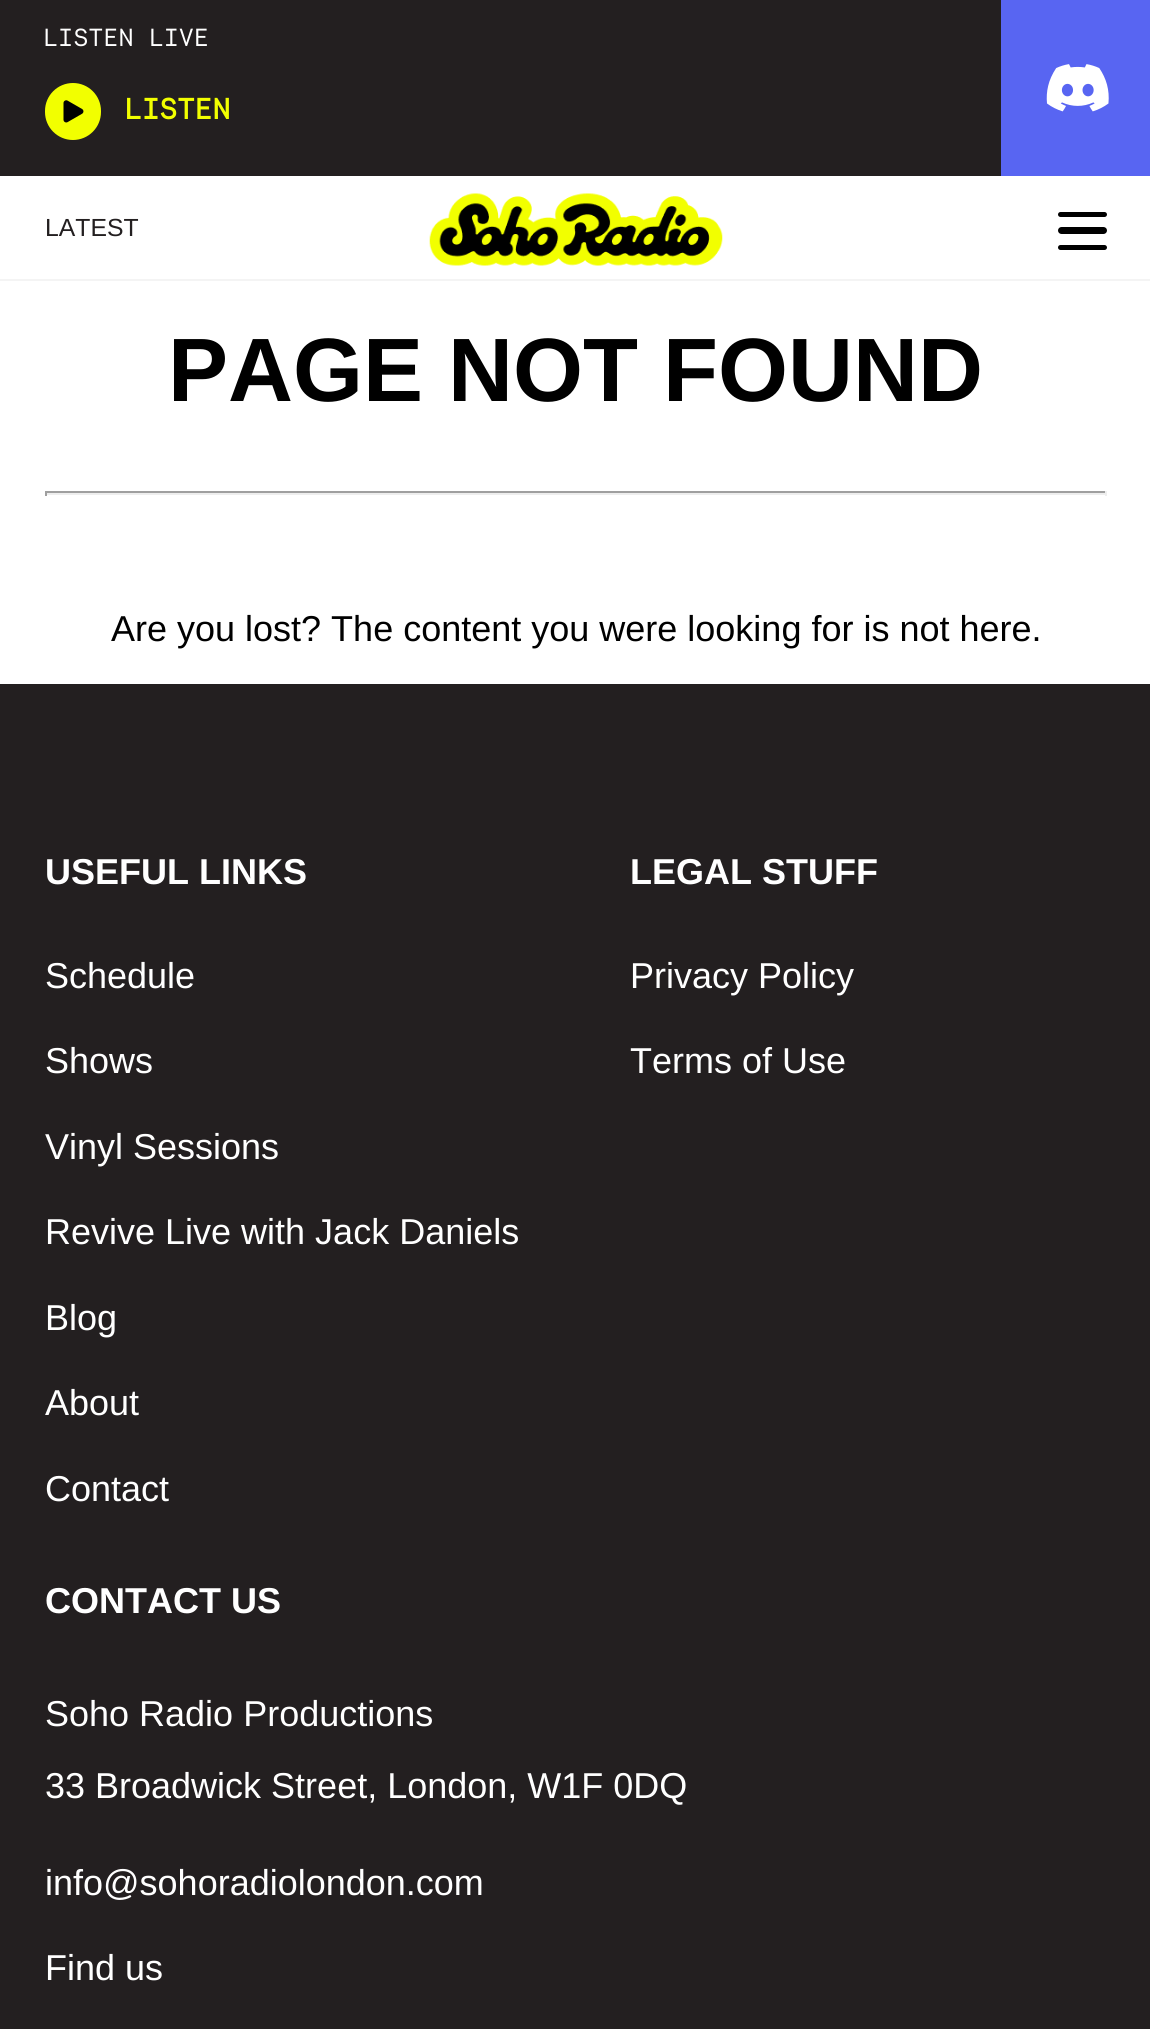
#include <cairo/cairo.h>
#include <math.h>
#include <stddef.h>


static void rounded_rect(cairo_t *cr, double x, double y, double w, double h, double r) {
  cairo_new_sub_path(cr);
  cairo_arc(cr, x + w - r, y + h - r, r, 0, M_PI / 2);
  cairo_arc(cr, x + r, y + h - r, r, M_PI / 2, M_PI);
  cairo_arc(cr, x + r, y + r, r, M_PI, 1.5 * M_PI);
  cairo_arc(cr, x + w - r, y + r, r, 1.5 * M_PI, 2 * M_PI);
  cairo_close_path(cr);
}

static void draw_image(cairo_t *cr, const char *path, double x, double y, double w, double h) {
  cairo_surface_t *image = cairo_image_surface_create_from_png(path);
  cairo_save(cr);
  cairo_set_source_surface(cr, image, x, y);
  cairo_rectangle(cr, x, y, w, h);
  cairo_fill(cr);
  cairo_restore(cr);
  cairo_surface_destroy(image);
}

static void draw(cairo_t *cr) {
  cairo_set_source_rgb(cr, 1, 1, 1);
  cairo_paint(cr);
  cairo_set_source_rgb(cr, 35 / 255.0, 31 / 255.0, 32 / 255.0);
  cairo_rectangle(cr, 0, 0, 1001, 176);
  cairo_fill(cr);
  cairo_set_source_rgb(cr, 242 / 255.0, 1, 0);
  rounded_rect(cr, 45, 83, 56, 57, 28);
  cairo_fill(cr);
  draw_image(cr, "images/1.png", 63, 100, 21, 23);
  cairo_set_source_rgb(cr, 88 / 255.0, 101 / 255.0, 242 / 255.0);
  cairo_rectangle(cr, 1001, 0, 149, 176);
  cairo_fill(cr);
  draw_image(cr, "images/2.png", 1046, 64, 63, 48);
  cairo_set_source_rgb(cr, 244 / 255.0, 244 / 255.0, 244 / 255.0);
  cairo_rectangle(cr, 0, 279, 1150, 2);
  cairo_fill(cr);
  draw_image(cr, "images/3.png", 429, 193, 294, 73);
  cairo_set_source_rgb(cr, 0, 0, 0);
  rounded_rect(cr, 1058, 212, 49, 5, 2.5);
  cairo_fill(cr);
  rounded_rect(cr, 1058, 227, 49, 7, 3.5);
  cairo_fill(cr);
  rounded_rect(cr, 1058, 245, 49, 5, 2.5);
  cairo_fill(cr);
  cairo_set_source_rgb(cr, 159 / 255.0, 159 / 255.0, 159 / 255.0);
  cairo_rectangle(cr, 45, 491, 1062, 2);
  cairo_fill(cr);
  cairo_set_source_rgb(cr, 238 / 255.0, 238 / 255.0, 238 / 255.0);
  cairo_rectangle(cr, 1105, 491, 2, 5);
  cairo_fill(cr);
  cairo_rectangle(cr, 45, 493, 1062, 2);
  cairo_fill(cr);
  cairo_set_source_rgb(cr, 159 / 255.0, 159 / 255.0, 159 / 255.0);
  cairo_rectangle(cr, 45, 491, 2, 5);
  cairo_fill(cr);
  cairo_set_source_rgb(cr, 35 / 255.0, 31 / 255.0, 32 / 255.0);
  cairo_rectangle(cr, 0, 684, 1150, 1345);
  cairo_fill(cr);
  cairo_select_font_face(cr, "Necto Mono", CAIRO_FONT_SLANT_NORMAL, CAIRO_FONT_WEIGHT_NORMAL);
  cairo_set_font_size(cr, 24.75);
  cairo_set_source_rgb(cr, 1, 1, 1);
  cairo_move_to(cr, 43, 46);
  cairo_show_text(cr, "LISTEN LIVE");
  cairo_select_font_face(cr, "Necto Mono", CAIRO_FONT_SLANT_NORMAL, CAIRO_FONT_WEIGHT_BOLD);
  cairo_set_font_size(cr, 29);
  cairo_set_source_rgb(cr, 242 / 255.0, 1, 0);
  cairo_move_to(cr, 124, 119);
  cairo_show_text(cr, "LISTEN");
  cairo_select_font_face(cr, "Liberation Sans", CAIRO_FONT_SLANT_NORMAL, CAIRO_FONT_WEIGHT_NORMAL);
  cairo_set_font_size(cr, 24.75);
  cairo_set_source_rgb(cr, 35 / 255.0, 31 / 255.0, 32 / 255.0);
  cairo_move_to(cr, 45, 236);
  cairo_show_text(cr, "LATEST");
  cairo_select_font_face(cr, "Liberation Sans", CAIRO_FONT_SLANT_NORMAL, CAIRO_FONT_WEIGHT_BOLD);
  cairo_set_font_size(cr, 90);
  cairo_set_source_rgb(cr, 0, 0, 0);
  cairo_move_to(cr, 168, 401);
  cairo_show_text(cr, "PAGE NOT FOUND");
  cairo_select_font_face(cr, "Liberation Sans", CAIRO_FONT_SLANT_NORMAL, CAIRO_FONT_WEIGHT_NORMAL);
  cairo_set_font_size(cr, 36);
  cairo_move_to(cr, 111, 641);
  cairo_show_text(cr, "Are you lost? The content you were looking for is not here.");
  cairo_select_font_face(cr, "Liberation Sans", CAIRO_FONT_SLANT_NORMAL, CAIRO_FONT_WEIGHT_BOLD);
  cairo_set_source_rgb(cr, 1, 1, 1);
  cairo_move_to(cr, 45, 884);
  cairo_show_text(cr, "USEFUL LINKS");
  cairo_select_font_face(cr, "Liberation Sans", CAIRO_FONT_SLANT_NORMAL, CAIRO_FONT_WEIGHT_NORMAL);
  cairo_move_to(cr, 45, 988);
  cairo_show_text(cr, "Schedule");
  cairo_move_to(cr, 45, 1073);
  cairo_show_text(cr, "Shows");
  cairo_move_to(cr, 45, 1159);
  cairo_show_text(cr, "Vinyl Sessions");
  cairo_move_to(cr, 45, 1244);
  cairo_show_text(cr, "Revive Live with Jack Daniels");
  cairo_move_to(cr, 45, 1330);
  cairo_show_text(cr, "Blog");
  cairo_move_to(cr, 45, 1415);
  cairo_show_text(cr, "About");
  cairo_move_to(cr, 45, 1501);
  cairo_show_text(cr, "Contact");
  cairo_select_font_face(cr, "Liberation Sans", CAIRO_FONT_SLANT_NORMAL, CAIRO_FONT_WEIGHT_BOLD);
  cairo_move_to(cr, 630, 884);
  cairo_show_text(cr, "LEGAL STUFF");
  cairo_select_font_face(cr, "Liberation Sans", CAIRO_FONT_SLANT_NORMAL, CAIRO_FONT_WEIGHT_NORMAL);
  cairo_move_to(cr, 630, 988);
  cairo_show_text(cr, "Privacy Policy");
  cairo_move_to(cr, 630, 1073);
  cairo_show_text(cr, "Terms of Use");
  cairo_select_font_face(cr, "Liberation Sans", CAIRO_FONT_SLANT_NORMAL, CAIRO_FONT_WEIGHT_BOLD);
  cairo_move_to(cr, 45, 1613);
  cairo_show_text(cr, "CONTACT US");
  cairo_select_font_face(cr, "Liberation Sans", CAIRO_FONT_SLANT_NORMAL, CAIRO_FONT_WEIGHT_NORMAL);
  cairo_move_to(cr, 45, 1726);
  cairo_show_text(cr, "Soho Radio Productions");
  cairo_move_to(cr, 45, 1798);
  cairo_show_text(cr, "33 Broadwick Street, London, W1F 0DQ");
  cairo_move_to(cr, 45, 1895);
  cairo_show_text(cr, "info@sohoradiolondon.com");
  cairo_move_to(cr, 45, 1980);
  cairo_show_text(cr, "Find us");
}

int main(void) {
  cairo_surface_t *surface = cairo_image_surface_create(CAIRO_FORMAT_RGB24, 1150, 2029);
  cairo_t *cr = cairo_create(surface);
  cairo_font_options_t *options = cairo_font_options_create();
  cairo_font_options_set_hint_metrics(options, CAIRO_HINT_METRICS_OFF);
  cairo_font_options_set_hint_style(options, CAIRO_HINT_STYLE_NONE);
  cairo_set_font_options(cr, options);
  cairo_set_miter_limit(cr, 4);
  draw(cr);
  cairo_surface_write_to_png(surface, "out.png");
  cairo_font_options_destroy(options);
  cairo_destroy(cr);
  cairo_surface_destroy(surface);
  return 0;
}
